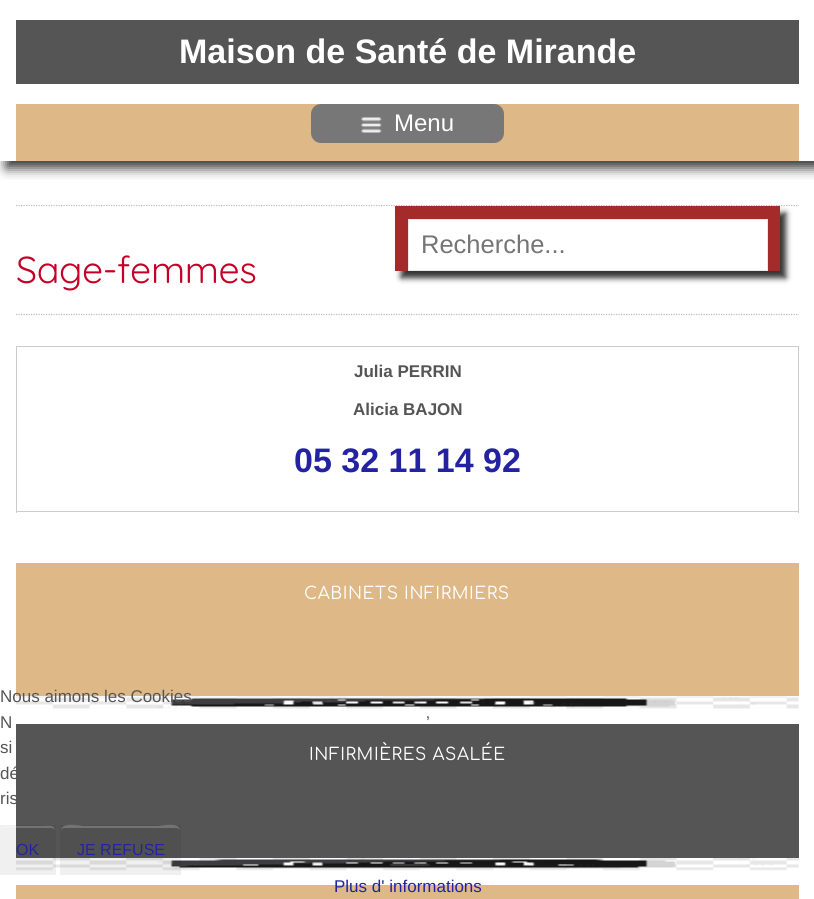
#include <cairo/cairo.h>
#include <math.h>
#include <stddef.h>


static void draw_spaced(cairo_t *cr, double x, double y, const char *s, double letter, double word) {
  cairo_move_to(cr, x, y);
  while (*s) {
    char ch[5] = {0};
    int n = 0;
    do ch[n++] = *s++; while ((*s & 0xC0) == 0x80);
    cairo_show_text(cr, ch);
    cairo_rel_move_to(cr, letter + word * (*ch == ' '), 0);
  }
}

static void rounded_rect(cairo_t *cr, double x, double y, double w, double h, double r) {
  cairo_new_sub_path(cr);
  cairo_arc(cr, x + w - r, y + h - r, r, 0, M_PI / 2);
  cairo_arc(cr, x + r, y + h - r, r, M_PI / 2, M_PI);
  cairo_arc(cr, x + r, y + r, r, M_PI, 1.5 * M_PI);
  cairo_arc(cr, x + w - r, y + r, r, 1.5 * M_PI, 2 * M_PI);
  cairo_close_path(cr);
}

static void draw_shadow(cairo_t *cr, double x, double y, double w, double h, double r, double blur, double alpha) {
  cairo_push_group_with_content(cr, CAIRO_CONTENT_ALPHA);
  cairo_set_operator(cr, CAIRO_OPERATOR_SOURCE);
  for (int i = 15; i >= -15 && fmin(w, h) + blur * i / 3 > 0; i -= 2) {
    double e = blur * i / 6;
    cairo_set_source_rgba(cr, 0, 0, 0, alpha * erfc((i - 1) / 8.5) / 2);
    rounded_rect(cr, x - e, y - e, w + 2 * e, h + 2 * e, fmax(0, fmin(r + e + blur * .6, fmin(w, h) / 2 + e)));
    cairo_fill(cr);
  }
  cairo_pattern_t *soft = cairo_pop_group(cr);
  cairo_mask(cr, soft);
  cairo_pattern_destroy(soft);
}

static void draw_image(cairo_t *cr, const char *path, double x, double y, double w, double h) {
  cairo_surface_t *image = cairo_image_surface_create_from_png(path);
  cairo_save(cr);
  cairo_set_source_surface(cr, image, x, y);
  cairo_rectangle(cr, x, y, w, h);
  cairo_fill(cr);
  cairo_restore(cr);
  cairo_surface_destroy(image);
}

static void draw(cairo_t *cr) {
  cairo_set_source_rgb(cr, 1, 1, 1);
  cairo_paint(cr);
  cairo_save(cr);
  cairo_rectangle(cr, 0, 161, 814, 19);
  cairo_clip(cr);
  cairo_set_source_rgb(cr, 51 / 255.0, 51 / 255.0, 51 / 255.0);
  draw_shadow(cr, 6, 6, 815, 162, 0, 6, 1);
  cairo_restore(cr);
  cairo_set_source_rgb(cr, 85 / 255.0, 85 / 255.0, 85 / 255.0);
  cairo_rectangle(cr, 16, 20, 783, 64);
  cairo_fill(cr);
  cairo_set_source_rgb(cr, 222 / 255.0, 184 / 255.0, 135 / 255.0);
  cairo_rectangle(cr, 16, 104, 783, 57);
  cairo_fill(cr);
  cairo_set_source_rgb(cr, 119 / 255.0, 119 / 255.0, 119 / 255.0);
  rounded_rect(cr, 311, 104, 193, 39, 10);
  cairo_fill(cr);
  draw_image(cr, "images/1.png", 361, 117, 21, 16);
  cairo_save(cr);
  cairo_rectangle(cr, 16, 205, 783, 320);
  cairo_clip(cr);
  cairo_new_path(cr);
  cairo_move_to(cr, 16, 205.5);
  cairo_line_to(cr, 799, 205.5);
  cairo_set_source_rgb(cr, 187 / 255.0, 187 / 255.0, 187 / 255.0);
  cairo_set_line_width(cr, 1.2);
  cairo_set_dash(cr, (double[]){1.25, 1.25}, 2, 0);
  cairo_stroke(cr);
  cairo_restore(cr);
  cairo_set_source_rgb(cr, 51 / 255.0, 51 / 255.0, 51 / 255.0);
  draw_shadow(cr, 401, 213, 385, 65, 0, 3, 1);
  cairo_set_source_rgb(cr, 165 / 255.0, 42 / 255.0, 42 / 255.0);
  cairo_rectangle(cr, 395, 206, 385, 65);
  cairo_fill(cr);
  cairo_set_source_rgb(cr, 1, 1, 1);
  cairo_rectangle(cr, 408.5, 219.5, 359, 51);
  cairo_fill_preserve(cr);
  cairo_set_source_rgb(cr, 232 / 255.0, 232 / 255.0, 232 / 255.0);
  cairo_set_line_width(cr, 1);
  cairo_stroke(cr);
  cairo_new_path(cr);
  cairo_move_to(cr, 16, 314.5);
  cairo_line_to(cr, 799, 314.5);
  cairo_set_source_rgb(cr, 187 / 255.0, 187 / 255.0, 187 / 255.0);
  cairo_set_line_width(cr, 1.2);
  cairo_set_dash(cr, (double[]){1.25, 1.25}, 2, 0);
  cairo_stroke(cr);
  cairo_set_source_rgb(cr, 204 / 255.0, 204 / 255.0, 204 / 255.0);
  cairo_rectangle(cr, 16, 346, 783, 1);
  cairo_fill(cr);
  cairo_rectangle(cr, 798, 346, 1, 167);
  cairo_fill(cr);
  cairo_rectangle(cr, 16, 511, 783, 1);
  cairo_fill(cr);
  cairo_rectangle(cr, 16, 346, 1, 167);
  cairo_fill(cr);
  draw_image(cr, "images/2.png", 16, 696, 783, 13);
  cairo_set_source_rgb(cr, 222 / 255.0, 184 / 255.0, 135 / 255.0);
  cairo_rectangle(cr, 16, 563, 783, 133);
  cairo_fill(cr);
  draw_image(cr, "images/3.png", 16, 858, 783, 13);
  cairo_set_source_rgb(cr, 85 / 255.0, 85 / 255.0, 85 / 255.0);
  cairo_rectangle(cr, 16, 724, 783, 134);
  cairo_fill(cr);
  cairo_set_source_rgb(cr, 222 / 255.0, 184 / 255.0, 135 / 255.0);
  cairo_rectangle(cr, 16, 885, 783, 14);
  cairo_fill(cr);
  cairo_set_source_rgba(cr, 0, 0, 0, 0.06);
  cairo_rectangle(cr, 0, 825, 56, 50);
  cairo_fill(cr);
  cairo_set_source_rgba(cr, 1, 1, 1, 0.2);
  cairo_new_path(cr);
  cairo_move_to(cr, 5, 828);
  cairo_line_to(cr, 51, 828);
  cairo_curve_to(cr, 53, 828, 55, 829, 55, 831);
  cairo_curve_to(cr, 55, 824, 48, 826, 43, 826);
  cairo_line_to(cr, 13, 826);
  cairo_curve_to(cr, 8, 826, 1, 824, 1, 831);
  cairo_curve_to(cr, 1, 829, 3, 828, 5, 828);
  cairo_close_path(cr);
  cairo_fill(cr);
  cairo_set_source_rgba(cr, 0, 0, 0, 0.06);
  cairo_rectangle(cr, 60, 825, 121, 50);
  cairo_fill(cr);
  cairo_set_source_rgb(cr, 115 / 255.0, 115 / 255.0, 115 / 255.0);
  cairo_new_path(cr);
  cairo_move_to(cr, 65, 828);
  cairo_line_to(cr, 176, 828);
  cairo_curve_to(cr, 178, 828, 180, 829, 180, 831);
  cairo_curve_to(cr, 180, 821, 161, 826, 158, 826);
  cairo_line_to(cr, 84, 826);
  cairo_curve_to(cr, 80, 826, 61, 821, 61, 831);
  cairo_curve_to(cr, 61, 829, 63, 828, 65, 828);
  cairo_close_path(cr);
  cairo_fill(cr);
  cairo_select_font_face(cr, "Liberation Sans", CAIRO_FONT_SLANT_NORMAL, CAIRO_FONT_WEIGHT_BOLD);
  cairo_set_font_size(cr, 34);
  cairo_set_source_rgb(cr, 1, 1, 1);
  cairo_move_to(cr, 179, 63);
  cairo_show_text(cr, "Maison de Santé de Mirande");
  cairo_select_font_face(cr, "Liberation Sans", CAIRO_FONT_SLANT_NORMAL, CAIRO_FONT_WEIGHT_NORMAL);
  cairo_set_font_size(cr, 24);
  cairo_move_to(cr, 394, 131);
  cairo_show_text(cr, "Menu");
  cairo_set_font_size(cr, 25.5);
  cairo_set_source_rgb(cr, 117 / 255.0, 117 / 255.0, 117 / 255.0);
  cairo_move_to(cr, 421, 253);
  cairo_show_text(cr, "Recherche...");
  cairo_select_font_face(cr, "Quicksand Light", CAIRO_FONT_SLANT_NORMAL, CAIRO_FONT_WEIGHT_NORMAL);
  cairo_set_font_size(cr, 37.5);
  cairo_set_source_rgb(cr, 196 / 255.0, 0, 39 / 255.0);
  draw_spaced(cr, 16, 283, "Sage-femmes", -0.4, 0);
  cairo_select_font_face(cr, "Liberation Sans", CAIRO_FONT_SLANT_NORMAL, CAIRO_FONT_WEIGHT_BOLD);
  cairo_set_font_size(cr, 17);
  cairo_set_source_rgb(cr, 85 / 255.0, 85 / 255.0, 85 / 255.0);
  cairo_move_to(cr, 354, 377);
  cairo_show_text(cr, "Julia PERRIN");
  cairo_move_to(cr, 353, 415);
  cairo_show_text(cr, "Alicia BAJON");
  cairo_set_font_size(cr, 34);
  cairo_set_source_rgb(cr, 35 / 255.0, 35 / 255.0, 161 / 255.0);
  cairo_move_to(cr, 294, 472);
  cairo_show_text(cr, "05 32 11 14 92");
  cairo_select_font_face(cr, "Comfortaa", CAIRO_FONT_SLANT_NORMAL, CAIRO_FONT_WEIGHT_NORMAL);
  cairo_set_font_size(cr, 17);
  cairo_set_source_rgb(cr, 1, 1, 1);
  draw_spaced(cr, 304, 599, "CABINETS INFIRMIERS", 0.6, 0);
  draw_spaced(cr, 309, 760, "INFIRMIÈRES ASALÉE", 0.6, 0);
  cairo_select_font_face(cr, "Liberation Sans", CAIRO_FONT_SLANT_NORMAL, CAIRO_FONT_WEIGHT_NORMAL);
  cairo_set_source_rgb(cr, 85 / 255.0, 85 / 255.0, 85 / 255.0);
  cairo_move_to(cr, 0, 702);
  cairo_show_text(cr, "Nous aimons les Cookies");
  cairo_move_to(cr, 0, 728);
  cairo_show_text(cr, "N");
  cairo_move_to(cr, 426, 728);
  cairo_show_text(cr, "’");
  cairo_move_to(cr, 0, 753);
  cairo_show_text(cr, "si");
  cairo_move_to(cr, 0, 779);
  cairo_show_text(cr, "dé");
  cairo_move_to(cr, 0, 804);
  cairo_show_text(cr, "ris");
  cairo_set_font_size(cr, 16);
  cairo_set_source_rgb(cr, 35 / 255.0, 35 / 255.0, 161 / 255.0);
  cairo_move_to(cr, 16, 855);
  cairo_show_text(cr, "OK");
  cairo_move_to(cr, 77, 855);
  cairo_show_text(cr, "JE REFUSE");
  cairo_set_font_size(cr, 17);
  cairo_move_to(cr, 334, 892);
  cairo_show_text(cr, "Plus d' informations");
}

int main(void) {
  cairo_surface_t *surface = cairo_image_surface_create(CAIRO_FORMAT_RGB24, 814, 899);
  cairo_t *cr = cairo_create(surface);
  cairo_font_options_t *options = cairo_font_options_create();
  cairo_font_options_set_hint_metrics(options, CAIRO_HINT_METRICS_OFF);
  cairo_font_options_set_hint_style(options, CAIRO_HINT_STYLE_NONE);
  cairo_set_font_options(cr, options);
  cairo_set_miter_limit(cr, 4);
  draw(cr);
  cairo_surface_write_to_png(surface, "out.png");
  cairo_font_options_destroy(options);
  cairo_destroy(cr);
  cairo_surface_destroy(surface);
  return 0;
}
